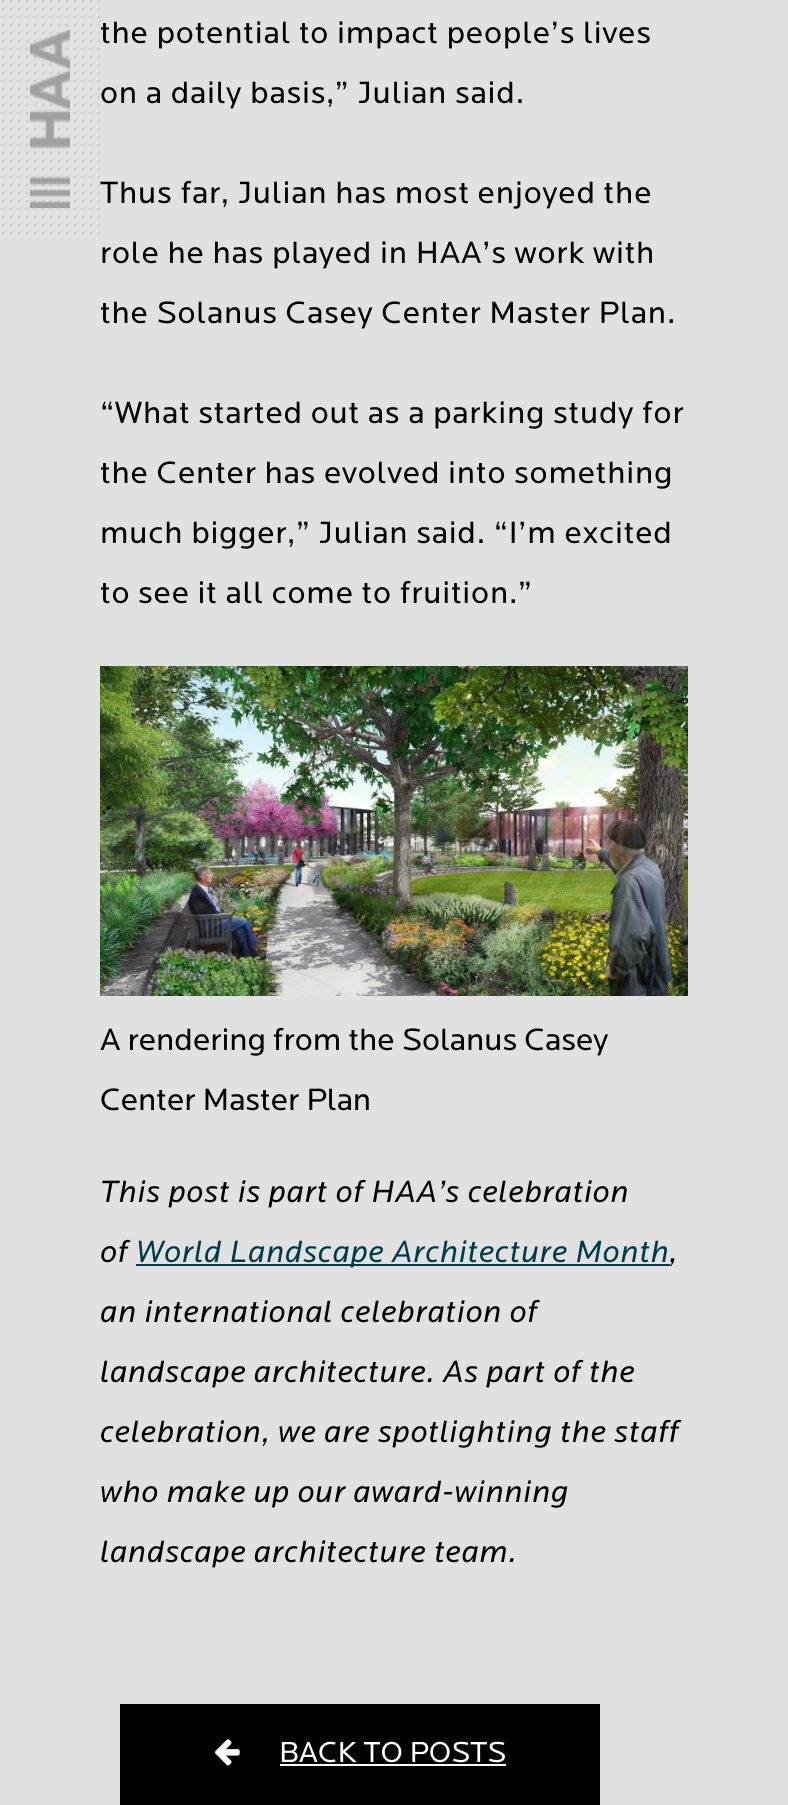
#include <cairo/cairo.h>
#include <math.h>
#include <stddef.h>


static void draw_spaced(cairo_t *cr, double x, double y, const char *s, double letter, double word) {
  cairo_move_to(cr, x, y);
  while (*s) {
    char ch[5] = {0};
    int n = 0;
    do ch[n++] = *s++; while ((*s & 0xC0) == 0x80);
    cairo_show_text(cr, ch);
    cairo_rel_move_to(cr, letter + word * (*ch == ' '), 0);
  }
}

static void draw_image(cairo_t *cr, const char *path, double x, double y, double w, double h) {
  cairo_surface_t *image = cairo_image_surface_create_from_png(path);
  cairo_save(cr);
  cairo_set_source_surface(cr, image, x, y);
  cairo_rectangle(cr, x, y, w, h);
  cairo_fill(cr);
  cairo_restore(cr);
  cairo_surface_destroy(image);
}

static void draw(cairo_t *cr) {
  cairo_set_source_rgb(cr, 225 / 255.0, 225 / 255.0, 225 / 255.0);
  cairo_paint(cr);
  draw_image(cr, "images/1.png", 1, 0, 99, 240);
  draw_image(cr, "images/2.png", 30, 30, 40, 178);
  draw_image(cr, "images/3.png", 100, 666, 588, 330);
  cairo_set_source_rgb(cr, 0, 59 / 255.0, 76 / 255.0);
  cairo_rectangle(cr, 136, 1264, 534, 2);
  cairo_fill(cr);
  cairo_set_source_rgb(cr, 0, 0, 0);
  cairo_rectangle(cr, 120, 1704, 480, 101);
  cairo_fill(cr);
  draw_image(cr, "images/4.png", 215, 1739, 25, 27);
  cairo_set_source_rgb(cr, 1, 1, 1);
  cairo_rectangle(cr, 280, 1764, 226, 2);
  cairo_fill(cr);
  cairo_select_font_face(cr, "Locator", CAIRO_FONT_SLANT_NORMAL, CAIRO_FONT_WEIGHT_NORMAL);
  cairo_set_font_size(cr, 32);
  cairo_set_source_rgb(cr, 0, 0, 0);
  draw_spaced(cr, 100, 43, "the potential to impact people’s lives", 0.8, 0);
  draw_spaced(cr, 100, 103, "on a daily basis,” Julian said.", 0.8, 0);
  draw_spaced(cr, 100, 203, "Thus far, Julian has most enjoyed the", 0.8, 0);
  draw_spaced(cr, 100, 263, "role he has played in HAA’s work with", 0.8, 0);
  draw_spaced(cr, 100, 323, "the Solanus Casey Center Master Plan.", 0.8, 0);
  draw_spaced(cr, 100, 423, "“What started out as a parking study for", 0.8, 0);
  draw_spaced(cr, 100, 483, "the Center has evolved into something", 0.8, 0);
  draw_spaced(cr, 100, 543, "much bigger,” Julian said. “I’m excited", 0.8, 0);
  draw_spaced(cr, 100, 603, "to see it all come to fruition.”", 0.8, 0);
  cairo_move_to(cr, 100, 1050);
  cairo_show_text(cr, "A rendering from the Solanus Casey");
  cairo_move_to(cr, 100, 1110);
  cairo_show_text(cr, "Center Master Plan");
  cairo_select_font_face(cr, "Locator", CAIRO_FONT_SLANT_ITALIC, CAIRO_FONT_WEIGHT_NORMAL);
  draw_spaced(cr, 100, 1202, "This post is part of HAA’s celebration", 0.8, 0);
  draw_spaced(cr, 100, 1262, "of", 0.8, 0);
  cairo_set_source_rgb(cr, 0, 59 / 255.0, 76 / 255.0);
  draw_spaced(cr, 136, 1262, "World Landscape Architecture Month", 0.8, 0);
  cairo_set_source_rgb(cr, 0, 0, 0);
  draw_spaced(cr, 669, 1262, ",", 0.8, 0);
  draw_spaced(cr, 100, 1322, "an international celebration of", 0.8, 0);
  draw_spaced(cr, 100, 1382, "landscape architecture. As part of the", 0.8, 0);
  draw_spaced(cr, 100, 1442, "celebration, we are spotlighting the staff", 0.8, 0);
  draw_spaced(cr, 100, 1502, "who make up our award-winning", 0.8, 0);
  draw_spaced(cr, 100, 1562, "landscape architecture team.", 0.8, 0);
  cairo_select_font_face(cr, "Locator", CAIRO_FONT_SLANT_NORMAL, CAIRO_FONT_WEIGHT_NORMAL);
  cairo_set_font_size(cr, 30);
  cairo_set_source_rgb(cr, 1, 1, 1);
  cairo_move_to(cr, 279, 1762);
  cairo_show_text(cr, "BACK TO POSTS");
}

int main(void) {
  cairo_surface_t *surface = cairo_image_surface_create(CAIRO_FORMAT_RGB24, 788, 1805);
  cairo_t *cr = cairo_create(surface);
  cairo_font_options_t *options = cairo_font_options_create();
  cairo_font_options_set_hint_metrics(options, CAIRO_HINT_METRICS_OFF);
  cairo_font_options_set_hint_style(options, CAIRO_HINT_STYLE_NONE);
  cairo_set_font_options(cr, options);
  cairo_set_miter_limit(cr, 4);
  draw(cr);
  cairo_surface_write_to_png(surface, "out.png");
  cairo_font_options_destroy(options);
  cairo_destroy(cr);
  cairo_surface_destroy(surface);
  return 0;
}
